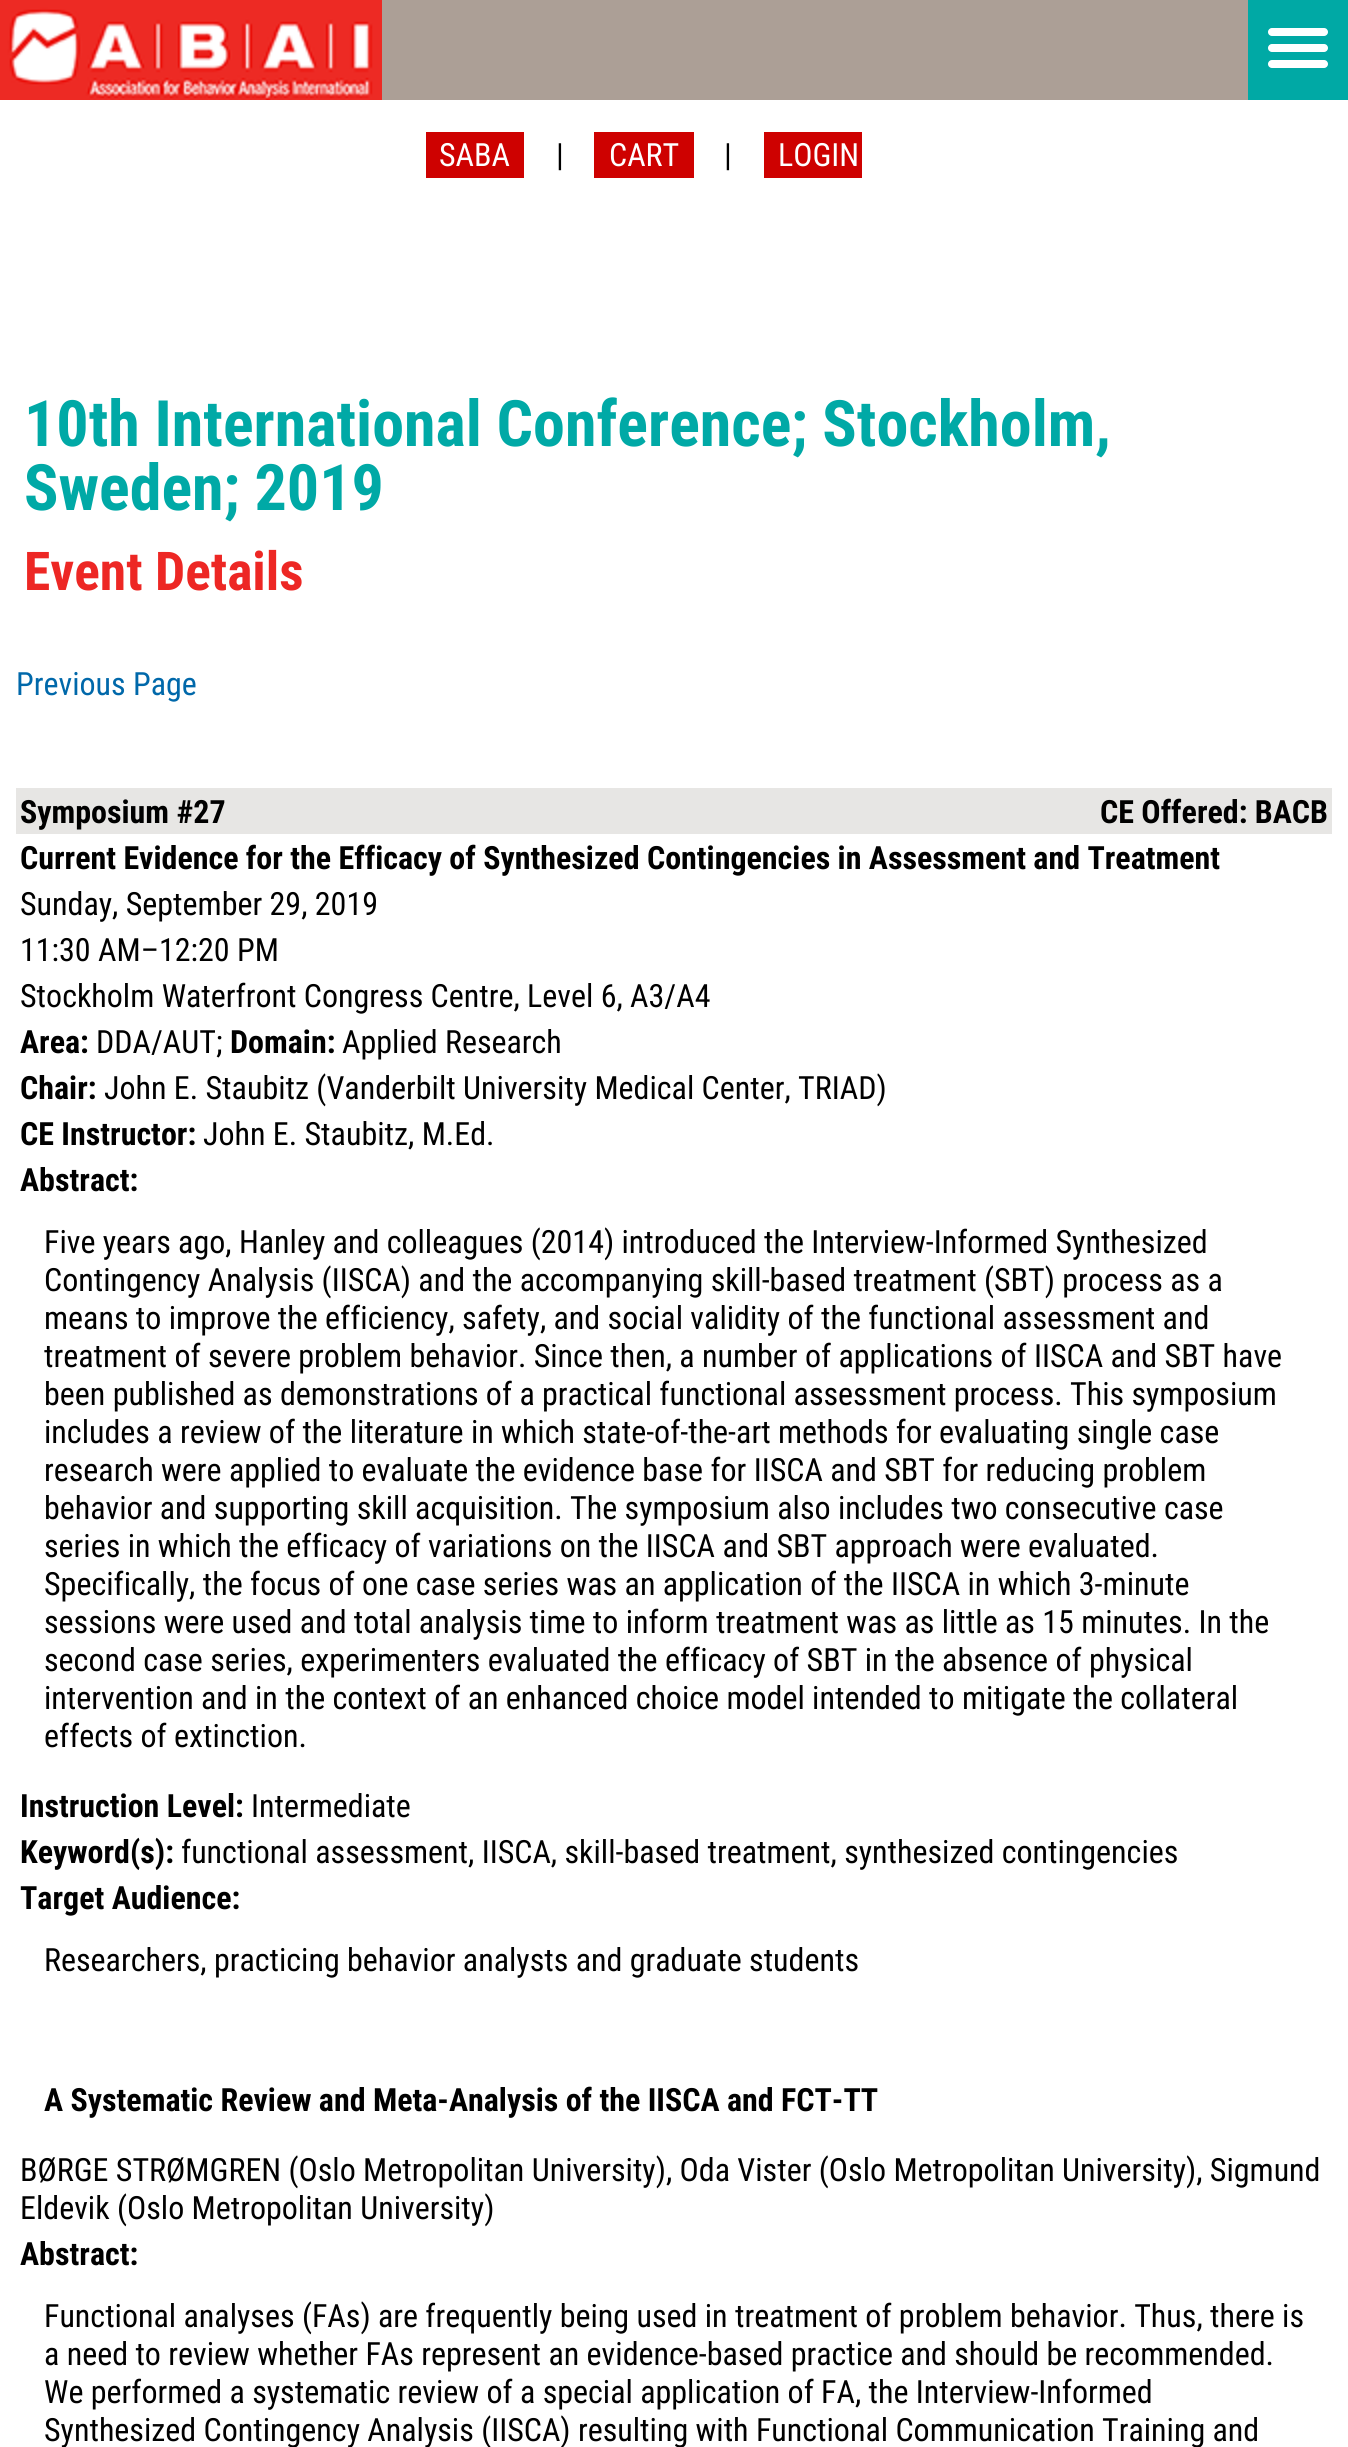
#include <cairo/cairo.h>
#include <math.h>
#include <stddef.h>


static void rounded_rect(cairo_t *cr, double x, double y, double w, double h, double r) {
  cairo_new_sub_path(cr);
  cairo_arc(cr, x + w - r, y + h - r, r, 0, M_PI / 2);
  cairo_arc(cr, x + r, y + h - r, r, M_PI / 2, M_PI);
  cairo_arc(cr, x + r, y + r, r, M_PI, 1.5 * M_PI);
  cairo_arc(cr, x + w - r, y + r, r, 1.5 * M_PI, 2 * M_PI);
  cairo_close_path(cr);
}

static void draw_image(cairo_t *cr, const char *path, double x, double y, double w, double h) {
  cairo_surface_t *image = cairo_image_surface_create_from_png(path);
  cairo_save(cr);
  cairo_set_source_surface(cr, image, x, y);
  cairo_rectangle(cr, x, y, w, h);
  cairo_fill(cr);
  cairo_restore(cr);
  cairo_surface_destroy(image);
}

static void draw(cairo_t *cr) {
  cairo_set_source_rgb(cr, 1, 1, 1);
  cairo_paint(cr);
  cairo_set_source_rgb(cr, 0, 169 / 255.0, 165 / 255.0);
  cairo_rectangle(cr, 1248, 0, 100, 100);
  cairo_fill(cr);
  cairo_set_source_rgb(cr, 1, 1, 1);
  rounded_rect(cr, 1268, 44, 60, 8, 4);
  cairo_fill(cr);
  rounded_rect(cr, 1268, 28, 60, 8, 4);
  cairo_fill(cr);
  rounded_rect(cr, 1268, 60, 60, 8, 4);
  cairo_fill(cr);
  cairo_set_source_rgb(cr, 172 / 255.0, 159 / 255.0, 150 / 255.0);
  cairo_rectangle(cr, 382, 0, 866, 100);
  cairo_fill(cr);
  draw_image(cr, "images/1.png", 0, 0, 382, 100);
  cairo_set_source_rgb(cr, 206 / 255.0, 1 / 255.0, 0);
  cairo_rectangle(cr, 426, 132, 98, 46);
  cairo_fill(cr);
  cairo_rectangle(cr, 594, 132, 100, 46);
  cairo_fill(cr);
  cairo_rectangle(cr, 764, 132, 98, 46);
  cairo_fill(cr);
  cairo_set_source_rgb(cr, 231 / 255.0, 230 / 255.0, 228 / 255.0);
  cairo_rectangle(cr, 16, 788, 1316, 46);
  cairo_fill(cr);
  cairo_select_font_face(cr, "Roboto Condensed", CAIRO_FONT_SLANT_NORMAL, CAIRO_FONT_WEIGHT_NORMAL);
  cairo_set_font_size(cr, 32);
  cairo_set_source_rgb(cr, 1, 1, 1);
  cairo_move_to(cr, 439, 166);
  cairo_show_text(cr, "SABA");
  cairo_set_source_rgb(cr, 0, 0, 0);
  cairo_move_to(cr, 556, 166);
  cairo_show_text(cr, "|");
  cairo_set_source_rgb(cr, 1, 1, 1);
  cairo_move_to(cr, 609, 166);
  cairo_show_text(cr, "CART");
  cairo_set_source_rgb(cr, 0, 0, 0);
  cairo_move_to(cr, 724, 166);
  cairo_show_text(cr, "|");
  cairo_set_source_rgb(cr, 1, 1, 1);
  cairo_move_to(cr, 778, 166);
  cairo_show_text(cr, "LOGIN");
  cairo_select_font_face(cr, "Roboto Condensed", CAIRO_FONT_SLANT_NORMAL, CAIRO_FONT_WEIGHT_BOLD);
  cairo_set_font_size(cr, 64);
  cairo_set_source_rgb(cr, 0, 169 / 255.0, 166 / 255.0);
  cairo_move_to(cr, 24, 446);
  cairo_show_text(cr, "10th International Conference; Stockholm,");
  cairo_move_to(cr, 24, 510);
  cairo_show_text(cr, "Sweden; 2019");
  cairo_set_font_size(cr, 53.5);
  cairo_set_source_rgb(cr, 237 / 255.0, 39 / 255.0, 36 / 255.0);
  cairo_move_to(cr, 24, 590);
  cairo_show_text(cr, "Event Details");
  cairo_select_font_face(cr, "Roboto Condensed", CAIRO_FONT_SLANT_NORMAL, CAIRO_FONT_WEIGHT_NORMAL);
  cairo_set_font_size(cr, 32);
  cairo_set_source_rgb(cr, 0, 104 / 255.0, 170 / 255.0);
  cairo_move_to(cr, 16, 695);
  cairo_show_text(cr, "Previous Page");
  cairo_select_font_face(cr, "Roboto Condensed", CAIRO_FONT_SLANT_NORMAL, CAIRO_FONT_WEIGHT_BOLD);
  cairo_set_source_rgb(cr, 0, 0, 0);
  cairo_move_to(cr, 20, 823);
  cairo_show_text(cr, "Symposium #27");
  cairo_move_to(cr, 1100, 823);
  cairo_show_text(cr, "CE Offered: BACB");
  cairo_move_to(cr, 20, 869);
  cairo_show_text(cr, "Current Evidence for the Efficacy of Synthesized Contingencies in Assessment and Treatment");
  cairo_select_font_face(cr, "Roboto Condensed", CAIRO_FONT_SLANT_NORMAL, CAIRO_FONT_WEIGHT_NORMAL);
  cairo_move_to(cr, 20, 915);
  cairo_show_text(cr, "Sunday, September 29, 2019");
  cairo_move_to(cr, 20, 961);
  cairo_show_text(cr, "11:30 AM–12:20 PM");
  cairo_move_to(cr, 20, 1007);
  cairo_show_text(cr, "Stockholm Waterfront Congress Centre, Level 6, A3/A4");
  cairo_select_font_face(cr, "Roboto Condensed", CAIRO_FONT_SLANT_NORMAL, CAIRO_FONT_WEIGHT_BOLD);
  cairo_move_to(cr, 20, 1053);
  cairo_show_text(cr, "Area:");
  cairo_select_font_face(cr, "Roboto Condensed", CAIRO_FONT_SLANT_NORMAL, CAIRO_FONT_WEIGHT_NORMAL);
  cairo_move_to(cr, 96, 1053);
  cairo_show_text(cr, "DDA/AUT;");
  cairo_select_font_face(cr, "Roboto Condensed", CAIRO_FONT_SLANT_NORMAL, CAIRO_FONT_WEIGHT_BOLD);
  cairo_move_to(cr, 230, 1053);
  cairo_show_text(cr, "Domain:");
  cairo_select_font_face(cr, "Roboto Condensed", CAIRO_FONT_SLANT_NORMAL, CAIRO_FONT_WEIGHT_NORMAL);
  cairo_move_to(cr, 342, 1053);
  cairo_show_text(cr, "Applied Research");
  cairo_select_font_face(cr, "Roboto Condensed", CAIRO_FONT_SLANT_NORMAL, CAIRO_FONT_WEIGHT_BOLD);
  cairo_move_to(cr, 20, 1099);
  cairo_show_text(cr, "Chair:");
  cairo_select_font_face(cr, "Roboto Condensed", CAIRO_FONT_SLANT_NORMAL, CAIRO_FONT_WEIGHT_NORMAL);
  cairo_move_to(cr, 104, 1099);
  cairo_show_text(cr, "John E. Staubitz (Vanderbilt University Medical Center, TRIAD)");
  cairo_select_font_face(cr, "Roboto Condensed", CAIRO_FONT_SLANT_NORMAL, CAIRO_FONT_WEIGHT_BOLD);
  cairo_move_to(cr, 20, 1145);
  cairo_show_text(cr, "CE Instructor:");
  cairo_select_font_face(cr, "Roboto Condensed", CAIRO_FONT_SLANT_NORMAL, CAIRO_FONT_WEIGHT_NORMAL);
  cairo_move_to(cr, 203, 1145);
  cairo_show_text(cr, "John E. Staubitz, M.Ed.");
  cairo_select_font_face(cr, "Roboto Condensed", CAIRO_FONT_SLANT_NORMAL, CAIRO_FONT_WEIGHT_BOLD);
  cairo_move_to(cr, 20, 1191);
  cairo_show_text(cr, "Abstract:");
  cairo_select_font_face(cr, "Roboto Condensed", CAIRO_FONT_SLANT_NORMAL, CAIRO_FONT_WEIGHT_NORMAL);
  cairo_move_to(cr, 44, 1253);
  cairo_show_text(cr, "Five years ago, Hanley and colleagues (2014) introduced the Interview-Informed Synthesized");
  cairo_move_to(cr, 44, 1291);
  cairo_show_text(cr, "Contingency Analysis (IISCA) and the accompanying skill-based treatment (SBT) process as a");
  cairo_move_to(cr, 44, 1329);
  cairo_show_text(cr, "means to improve the efficiency, safety, and social validity of the functional assessment and");
  cairo_move_to(cr, 44, 1367);
  cairo_show_text(cr, "treatment of severe problem behavior. Since then, a number of applications of IISCA and SBT have");
  cairo_move_to(cr, 44, 1405);
  cairo_show_text(cr, "been published as demonstrations of a practical functional assessment process. This symposium");
  cairo_move_to(cr, 44, 1443);
  cairo_show_text(cr, "includes a review of the literature in which state-of-the-art methods for evaluating single case");
  cairo_move_to(cr, 44, 1481);
  cairo_show_text(cr, "research were applied to evaluate the evidence base for IISCA and SBT for reducing problem");
  cairo_move_to(cr, 44, 1519);
  cairo_show_text(cr, "behavior and supporting skill acquisition. The symposium also includes two consecutive case");
  cairo_move_to(cr, 44, 1557);
  cairo_show_text(cr, "series in which the efficacy of variations on the IISCA and SBT approach were evaluated.");
  cairo_move_to(cr, 44, 1595);
  cairo_show_text(cr, "Specifically, the focus of one case series was an application of the IISCA in which 3-minute");
  cairo_move_to(cr, 44, 1633);
  cairo_show_text(cr, "sessions were used and total analysis time to inform treatment was as little as 15 minutes. In the");
  cairo_move_to(cr, 44, 1671);
  cairo_show_text(cr, "second case series, experimenters evaluated the efficacy of SBT in the absence of physical");
  cairo_move_to(cr, 44, 1709);
  cairo_show_text(cr, "intervention and in the context of an enhanced choice model intended to mitigate the collateral");
  cairo_move_to(cr, 44, 1747);
  cairo_show_text(cr, "effects of extinction.");
  cairo_select_font_face(cr, "Roboto Condensed", CAIRO_FONT_SLANT_NORMAL, CAIRO_FONT_WEIGHT_BOLD);
  cairo_move_to(cr, 20, 1817);
  cairo_show_text(cr, "Instruction Level:");
  cairo_select_font_face(cr, "Roboto Condensed", CAIRO_FONT_SLANT_NORMAL, CAIRO_FONT_WEIGHT_NORMAL);
  cairo_move_to(cr, 251, 1817);
  cairo_show_text(cr, "Intermediate");
  cairo_select_font_face(cr, "Roboto Condensed", CAIRO_FONT_SLANT_NORMAL, CAIRO_FONT_WEIGHT_BOLD);
  cairo_move_to(cr, 20, 1863);
  cairo_show_text(cr, "Keyword(s):");
  cairo_select_font_face(cr, "Roboto Condensed", CAIRO_FONT_SLANT_NORMAL, CAIRO_FONT_WEIGHT_NORMAL);
  cairo_move_to(cr, 181, 1863);
  cairo_show_text(cr, "functional assessment, IISCA, skill-based treatment, synthesized contingencies");
  cairo_select_font_face(cr, "Roboto Condensed", CAIRO_FONT_SLANT_NORMAL, CAIRO_FONT_WEIGHT_BOLD);
  cairo_move_to(cr, 20, 1909);
  cairo_show_text(cr, "Target Audience:");
  cairo_select_font_face(cr, "Roboto Condensed", CAIRO_FONT_SLANT_NORMAL, CAIRO_FONT_WEIGHT_NORMAL);
  cairo_move_to(cr, 44, 1971);
  cairo_show_text(cr, "Researchers, practicing behavior analysts and graduate students");
  cairo_select_font_face(cr, "Roboto Condensed", CAIRO_FONT_SLANT_NORMAL, CAIRO_FONT_WEIGHT_BOLD);
  cairo_move_to(cr, 44, 2111);
  cairo_show_text(cr, "A Systematic Review and Meta-Analysis of the IISCA and FCT-TT");
  cairo_select_font_face(cr, "Roboto Condensed", CAIRO_FONT_SLANT_NORMAL, CAIRO_FONT_WEIGHT_NORMAL);
  cairo_move_to(cr, 20, 2181);
  cairo_show_text(cr, "BØRGE STRØMGREN (Oslo Metropolitan University), Oda Vister (Oslo Metropolitan University), Sigmund");
  cairo_move_to(cr, 20, 2219);
  cairo_show_text(cr, "Eldevik (Oslo Metropolitan University)");
  cairo_select_font_face(cr, "Roboto Condensed", CAIRO_FONT_SLANT_NORMAL, CAIRO_FONT_WEIGHT_BOLD);
  cairo_move_to(cr, 20, 2265);
  cairo_show_text(cr, "Abstract:");
  cairo_select_font_face(cr, "Roboto Condensed", CAIRO_FONT_SLANT_NORMAL, CAIRO_FONT_WEIGHT_NORMAL);
  cairo_move_to(cr, 44, 2327);
  cairo_show_text(cr, "Functional analyses (FAs) are frequently being used in treatment of problem behavior. Thus, there is");
  cairo_move_to(cr, 44, 2365);
  cairo_show_text(cr, "a need to review whether FAs represent an evidence-based practice and should be recommended.");
  cairo_move_to(cr, 44, 2403);
  cairo_show_text(cr, "We performed a systematic review of a special application of FA, the Interview-Informed");
  cairo_move_to(cr, 44, 2441);
  cairo_show_text(cr, "Synthesized Contingency Analysis (IISCA) resulting with Functional Communication Training and");
}

int main(void) {
  cairo_surface_t *surface = cairo_image_surface_create(CAIRO_FORMAT_RGB24, 1348, 2447);
  cairo_t *cr = cairo_create(surface);
  cairo_font_options_t *options = cairo_font_options_create();
  cairo_font_options_set_hint_metrics(options, CAIRO_HINT_METRICS_OFF);
  cairo_font_options_set_hint_style(options, CAIRO_HINT_STYLE_NONE);
  cairo_set_font_options(cr, options);
  cairo_set_miter_limit(cr, 4);
  draw(cr);
  cairo_surface_write_to_png(surface, "out.png");
  cairo_font_options_destroy(options);
  cairo_destroy(cr);
  cairo_surface_destroy(surface);
  return 0;
}
